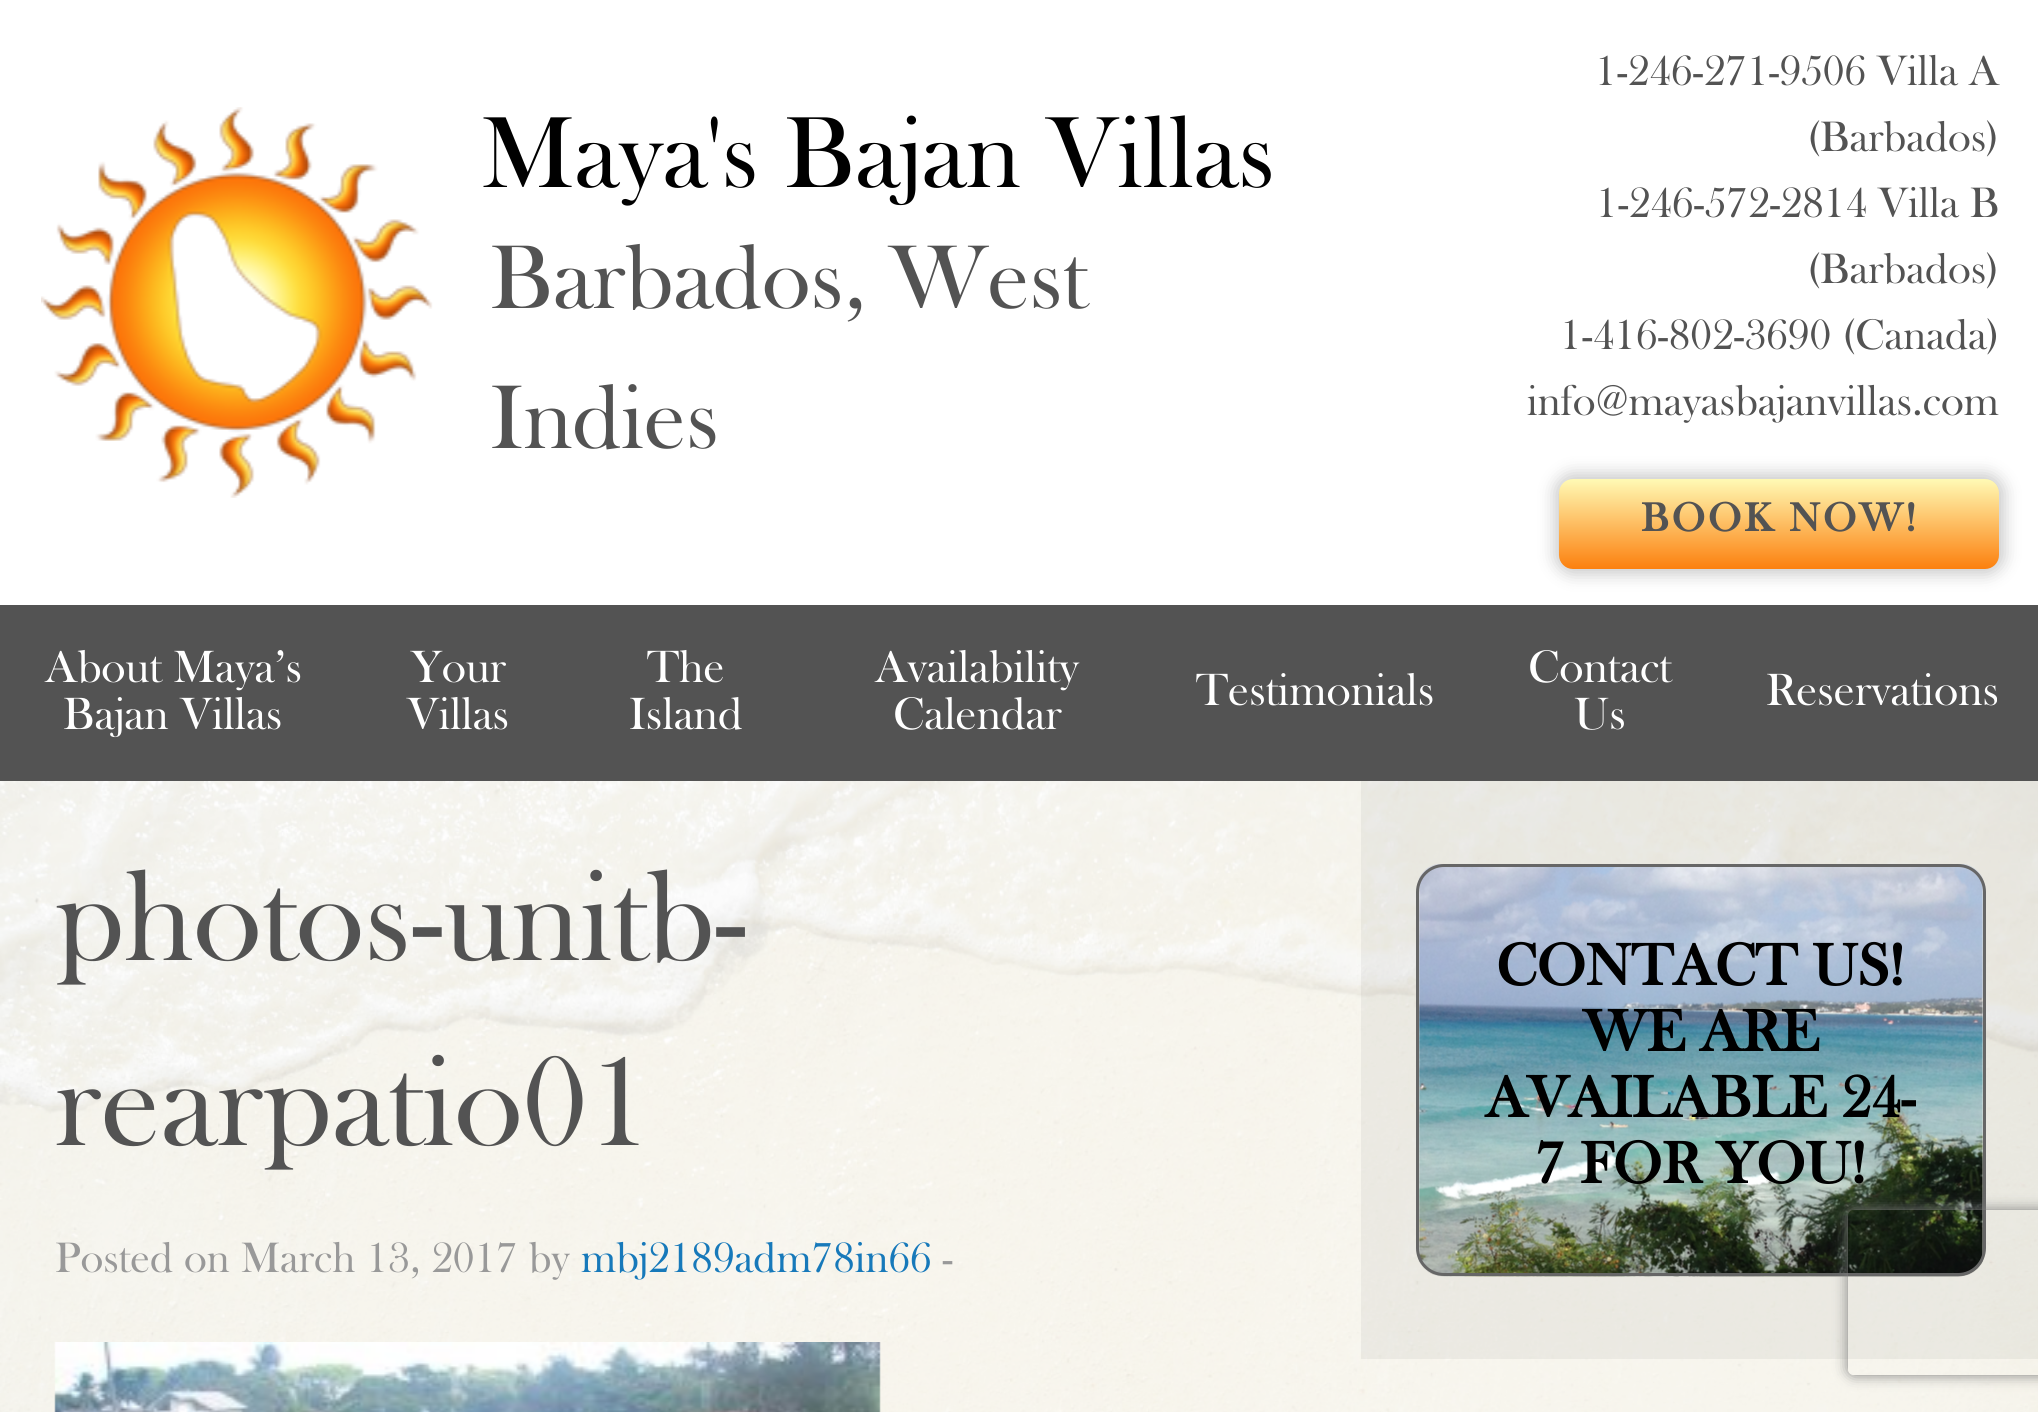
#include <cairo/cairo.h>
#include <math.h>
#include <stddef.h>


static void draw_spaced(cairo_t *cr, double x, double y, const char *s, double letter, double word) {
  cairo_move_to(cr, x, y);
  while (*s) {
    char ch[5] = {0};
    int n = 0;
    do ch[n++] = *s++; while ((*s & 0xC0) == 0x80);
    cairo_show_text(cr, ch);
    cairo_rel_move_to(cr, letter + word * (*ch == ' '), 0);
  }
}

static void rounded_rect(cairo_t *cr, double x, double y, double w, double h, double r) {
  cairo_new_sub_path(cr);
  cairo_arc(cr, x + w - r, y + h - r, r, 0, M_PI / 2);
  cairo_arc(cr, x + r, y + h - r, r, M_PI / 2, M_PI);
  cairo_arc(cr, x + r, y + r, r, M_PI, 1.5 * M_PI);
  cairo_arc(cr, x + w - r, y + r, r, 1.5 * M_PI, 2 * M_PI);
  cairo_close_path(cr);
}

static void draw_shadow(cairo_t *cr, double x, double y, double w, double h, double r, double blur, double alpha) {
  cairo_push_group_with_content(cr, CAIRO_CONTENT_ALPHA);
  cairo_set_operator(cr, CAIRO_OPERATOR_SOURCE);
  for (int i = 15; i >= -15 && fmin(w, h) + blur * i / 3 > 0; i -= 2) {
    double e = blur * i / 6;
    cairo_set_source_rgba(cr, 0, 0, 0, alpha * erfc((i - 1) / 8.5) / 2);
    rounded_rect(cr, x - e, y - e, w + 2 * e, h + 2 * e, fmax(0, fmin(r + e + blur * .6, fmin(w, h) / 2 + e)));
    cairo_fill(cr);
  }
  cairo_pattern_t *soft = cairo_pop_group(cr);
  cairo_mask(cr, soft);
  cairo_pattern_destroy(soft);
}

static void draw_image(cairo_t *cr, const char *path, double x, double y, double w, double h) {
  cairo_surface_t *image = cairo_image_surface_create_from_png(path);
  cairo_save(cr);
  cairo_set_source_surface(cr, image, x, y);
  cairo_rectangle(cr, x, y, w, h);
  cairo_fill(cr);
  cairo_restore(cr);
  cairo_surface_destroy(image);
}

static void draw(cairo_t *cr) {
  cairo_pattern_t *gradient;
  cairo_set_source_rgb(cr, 1, 1, 1);
  cairo_paint(cr);
  draw_image(cr, "images/1.png", 41, 107, 392, 391);
  cairo_set_source_rgb(cr, 0, 0, 0);
  draw_shadow(cr, 1554, 473, 451, 102, 19, 8, 0.2);
  gradient = cairo_pattern_create_linear(1779, 479, 1779, 569);
  cairo_pattern_add_color_stop_rgba(gradient, 0, 1, 250 / 255.0, 181 / 255.0, 1);
  cairo_pattern_add_color_stop_rgba(gradient, 1, 252 / 255.0, 128 / 255.0, 14 / 255.0, 1);
  cairo_set_source(cr, gradient);
  cairo_pattern_destroy(gradient);
  rounded_rect(cr, 1559, 479, 440, 90, 14);
  cairo_fill(cr);
  cairo_set_source_rgb(cr, 83 / 255.0, 83 / 255.0, 83 / 255.0);
  cairo_rectangle(cr, 0, 605, 2038, 176);
  cairo_fill(cr);
  draw_image(cr, "images/2.png", 0, 781, 2038, 631);
  draw_image(cr, "images/3.png", 54, 1342, 827, 70);
  cairo_set_source_rgba(cr, 0, 0, 0, 0.05);
  cairo_rectangle(cr, 1361, 781, 677, 578);
  cairo_fill(cr);
  draw_image(cr, "images/4.png", 1418, 864, 566, 413);
  rounded_rect(cr, 1417.5, 865.5, 567, 409, 26.5);
  cairo_set_source_rgb(cr, 102 / 255.0, 102 / 255.0, 102 / 255.0);
  cairo_set_line_width(cr, 3);
  cairo_stroke(cr);
  cairo_save(cr);
  cairo_set_fill_rule(cr, CAIRO_FILL_RULE_EVEN_ODD);
  cairo_new_path(cr);
  cairo_move_to(cr, 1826, 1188);
  cairo_line_to(cr, 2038, 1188);
  cairo_line_to(cr, 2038, 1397);
  cairo_line_to(cr, 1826, 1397);
  cairo_close_path(cr);
  cairo_move_to(cr, 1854, 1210);
  cairo_line_to(cr, 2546, 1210);
  cairo_curve_to(cr, 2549.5, 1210, 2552, 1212.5, 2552, 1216);
  cairo_line_to(cr, 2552, 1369);
  cairo_curve_to(cr, 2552, 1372.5, 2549.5, 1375, 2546, 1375);
  cairo_line_to(cr, 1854, 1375);
  cairo_curve_to(cr, 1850.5, 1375, 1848, 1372.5, 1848, 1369);
  cairo_line_to(cr, 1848, 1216);
  cairo_curve_to(cr, 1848, 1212.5, 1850.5, 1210, 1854, 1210);
  cairo_close_path(cr);
  cairo_clip(cr);
  cairo_set_source_rgb(cr, 128 / 255.0, 128 / 255.0, 128 / 255.0);
  draw_shadow(cr, 1848, 1210, 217, 165, 6, 7, 1);
  cairo_restore(cr);
  cairo_select_font_face(cr, "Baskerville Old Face", CAIRO_FONT_SLANT_NORMAL, CAIRO_FONT_WEIGHT_NORMAL);
  cairo_set_font_size(cr, 104.5);
  cairo_set_source_rgb(cr, 0, 0, 0);
  cairo_move_to(cr, 481, 187);
  cairo_show_text(cr, "Maya's Bajan Villas");
  cairo_set_font_size(cr, 93.5);
  cairo_set_source_rgb(cr, 83 / 255.0, 83 / 255.0, 83 / 255.0);
  cairo_move_to(cr, 490, 308);
  cairo_show_text(cr, "Barbados, West");
  cairo_move_to(cr, 490, 448);
  cairo_show_text(cr, "Indies");
  cairo_set_font_size(cr, 44);
  cairo_move_to(cr, 1595, 85);
  cairo_show_text(cr, "1-246-271-9506 Villa A");
  cairo_move_to(cr, 1807, 151);
  cairo_show_text(cr, "(Barbados)");
  cairo_move_to(cr, 1596, 217);
  cairo_show_text(cr, "1-246-572-2814 Villa B");
  cairo_move_to(cr, 1807, 283);
  cairo_show_text(cr, "(Barbados)");
  cairo_move_to(cr, 1560, 349);
  cairo_show_text(cr, "1-416-802-3690 (Canada)");
  cairo_move_to(cr, 1527, 415);
  cairo_show_text(cr, "info@mayasbajanvillas.com");
  cairo_select_font_face(cr, "Baskerville Old Face", CAIRO_FONT_SLANT_NORMAL, CAIRO_FONT_WEIGHT_BOLD);
  cairo_set_font_size(cr, 41.25);
  draw_spaced(cr, 1641, 531, "BOOK NOW!", 2.75, 0);
  cairo_select_font_face(cr, "Baskerville Old Face", CAIRO_FONT_SLANT_NORMAL, CAIRO_FONT_WEIGHT_NORMAL);
  cairo_set_font_size(cr, 46.75);
  cairo_set_source_rgb(cr, 1, 1, 1);
  cairo_move_to(cr, 45, 682);
  cairo_show_text(cr, "About Maya’s");
  cairo_move_to(cr, 63, 729);
  cairo_show_text(cr, "Bajan Villas");
  cairo_move_to(cr, 411, 682);
  cairo_show_text(cr, "Your");
  cairo_move_to(cr, 407, 729);
  cairo_show_text(cr, "Villas");
  cairo_move_to(cr, 647, 682);
  cairo_show_text(cr, "The");
  cairo_move_to(cr, 629, 729);
  cairo_show_text(cr, "Island");
  cairo_move_to(cr, 875, 682);
  cairo_show_text(cr, "Availability");
  cairo_move_to(cr, 893, 729);
  cairo_show_text(cr, "Calendar");
  cairo_move_to(cr, 1196, 705);
  cairo_show_text(cr, "Testimonials");
  cairo_move_to(cr, 1528, 682);
  cairo_show_text(cr, "Contact");
  cairo_move_to(cr, 1574, 729);
  cairo_show_text(cr, "Us");
  cairo_move_to(cr, 1766, 705);
  cairo_show_text(cr, "Reservations");
  cairo_set_font_size(cr, 132);
  cairo_set_source_rgb(cr, 83 / 255.0, 83 / 255.0, 83 / 255.0);
  cairo_move_to(cr, 55, 960);
  cairo_show_text(cr, "photos-unitb-");
  cairo_move_to(cr, 55, 1145);
  cairo_show_text(cr, "rearpatio01");
  cairo_set_font_size(cr, 44);
  cairo_set_source_rgb(cr, 153 / 255.0, 153 / 255.0, 153 / 255.0);
  cairo_move_to(cr, 55, 1272);
  cairo_show_text(cr, "Posted on March 13, 2017 by");
  cairo_set_source_rgb(cr, 23 / 255.0, 121 / 255.0, 186 / 255.0);
  cairo_move_to(cr, 581, 1272);
  cairo_show_text(cr, "mbj2189adm78in66");
  cairo_set_source_rgb(cr, 153 / 255.0, 153 / 255.0, 153 / 255.0);
  cairo_move_to(cr, 942, 1272);
  cairo_show_text(cr, "-");
  cairo_select_font_face(cr, "Baskerville Old Face", CAIRO_FONT_SLANT_NORMAL, CAIRO_FONT_WEIGHT_BOLD);
  cairo_set_font_size(cr, 60.5);
  cairo_set_source_rgb(cr, 0, 0, 0);
  cairo_move_to(cr, 1496, 985);
  cairo_show_text(cr, "CONTACT US!");
  cairo_move_to(cr, 1583, 1051);
  cairo_show_text(cr, "WE ARE");
  cairo_move_to(cr, 1485, 1117);
  cairo_show_text(cr, "AVAILABLE 24-");
  cairo_move_to(cr, 1535, 1183);
  cairo_show_text(cr, "7 FOR YOU!");
}

int main(void) {
  cairo_surface_t *surface = cairo_image_surface_create(CAIRO_FORMAT_RGB24, 2038, 1412);
  cairo_t *cr = cairo_create(surface);
  cairo_font_options_t *options = cairo_font_options_create();
  cairo_font_options_set_hint_metrics(options, CAIRO_HINT_METRICS_OFF);
  cairo_font_options_set_hint_style(options, CAIRO_HINT_STYLE_NONE);
  cairo_set_font_options(cr, options);
  cairo_set_miter_limit(cr, 4);
  draw(cr);
  cairo_surface_write_to_png(surface, "out.png");
  cairo_font_options_destroy(options);
  cairo_destroy(cr);
  cairo_surface_destroy(surface);
  return 0;
}
